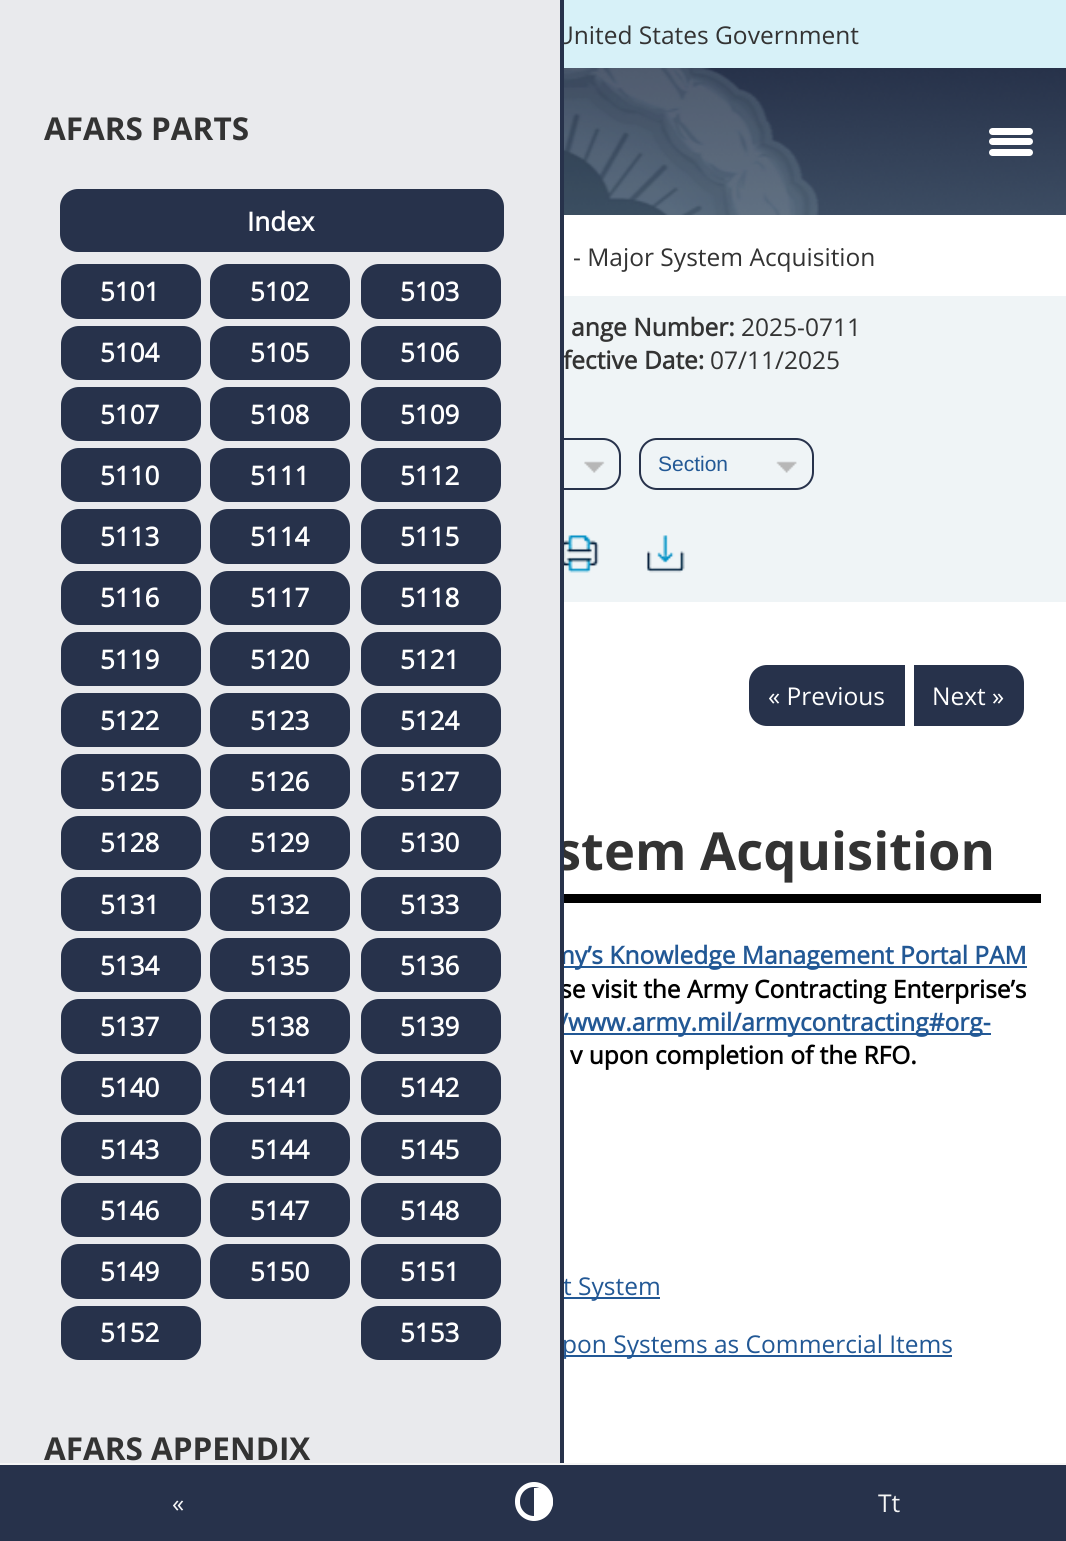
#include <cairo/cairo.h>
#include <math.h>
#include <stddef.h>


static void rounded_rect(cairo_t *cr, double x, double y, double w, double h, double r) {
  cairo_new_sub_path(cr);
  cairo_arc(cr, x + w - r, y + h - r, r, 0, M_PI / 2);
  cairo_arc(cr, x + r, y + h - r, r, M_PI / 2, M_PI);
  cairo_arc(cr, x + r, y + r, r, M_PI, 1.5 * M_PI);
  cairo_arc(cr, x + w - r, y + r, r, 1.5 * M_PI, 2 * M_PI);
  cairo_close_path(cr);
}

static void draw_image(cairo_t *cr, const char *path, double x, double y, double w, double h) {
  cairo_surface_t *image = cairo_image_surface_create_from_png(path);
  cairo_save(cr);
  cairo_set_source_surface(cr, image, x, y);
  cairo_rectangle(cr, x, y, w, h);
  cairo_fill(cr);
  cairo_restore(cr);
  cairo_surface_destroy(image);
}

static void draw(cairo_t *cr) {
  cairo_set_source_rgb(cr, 1, 1, 1);
  cairo_paint(cr);
  cairo_set_source_rgb(cr, 215 / 255.0, 241 / 255.0, 248 / 255.0);
  cairo_rectangle(cr, 564, 0, 502, 68);
  cairo_fill(cr);
  draw_image(cr, "images/1.png", 564, 68, 502, 147);
  draw_image(cr, "images/2.png", 564, 68, 255, 147);
  cairo_set_source_rgb(cr, 1, 1, 1);
  rounded_rect(cr, 989, 138, 44, 7, 3.5);
  cairo_fill(cr);
  rounded_rect(cr, 989, 128, 44, 7, 3.5);
  cairo_fill(cr);
  rounded_rect(cr, 989, 149, 44, 7, 3.5);
  cairo_fill(cr);
  cairo_set_source_rgb(cr, 239 / 255.0, 244 / 255.0, 246 / 255.0);
  cairo_rectangle(cr, 564, 296, 502, 306);
  cairo_fill(cr);
  draw_image(cr, "images/3.png", 584, 461, 21, 12);
  rounded_rect(cr, 447, 439, 173, 50, 17);
  cairo_set_source_rgb(cr, 39 / 255.0, 50 / 255.0, 75 / 255.0);
  cairo_stroke(cr);
  draw_image(cr, "images/4.png", 776, 461, 21, 12);
  rounded_rect(cr, 640, 439, 173, 50, 17);
  cairo_stroke(cr);
  draw_image(cr, "images/5.png", 564, 534, 35, 39);
  draw_image(cr, "images/6.png", 646, 535, 39, 38);
  cairo_new_path(cr);
  cairo_move_to(cr, 767, 666);
  cairo_line_to(cr, 904, 666);
  cairo_line_to(cr, 904, 725);
  cairo_line_to(cr, 767, 725);
  cairo_curve_to(cr, 757.5, 725, 750, 717.5, 750, 708);
  cairo_line_to(cr, 750, 683);
  cairo_curve_to(cr, 750, 673.5, 757.5, 666, 767, 666);
  cairo_close_path(cr);
  cairo_fill_preserve(cr);
  cairo_stroke(cr);
  cairo_new_path(cr);
  cairo_move_to(cr, 915, 666);
  cairo_line_to(cr, 1006, 666);
  cairo_curve_to(cr, 1015.5, 666, 1023, 673.5, 1023, 683);
  cairo_line_to(cr, 1023, 708);
  cairo_curve_to(cr, 1023, 717.5, 1015.5, 725, 1006, 725);
  cairo_line_to(cr, 915, 725);
  cairo_close_path(cr);
  cairo_fill_preserve(cr);
  cairo_stroke(cr);
  cairo_set_source_rgb(cr, 0, 0, 0);
  cairo_rectangle(cr, 564, 894, 477, 9);
  cairo_fill(cr);
  cairo_set_source_rgb(cr, 34 / 255.0, 88 / 255.0, 149 / 255.0);
  cairo_rectangle(cr, 564, 966, 463, 2);
  cairo_fill(cr);
  cairo_rectangle(cr, 564, 1033, 427, 2);
  cairo_fill(cr);
  cairo_rectangle(cr, 564, 1297, 96, 2);
  cairo_fill(cr);
  cairo_rectangle(cr, 564, 1355, 388, 2);
  cairo_fill(cr);
  cairo_set_source_rgb(cr, 39 / 255.0, 50 / 255.0, 75 / 255.0);
  cairo_rectangle(cr, 0, 1465, 1066, 76);
  cairo_fill(cr);
  cairo_set_source_rgb(cr, 246 / 255.0, 246 / 255.0, 246 / 255.0);
  cairo_rectangle(cr, 0, 1463, 1066, 2);
  cairo_fill(cr);
  rounded_rect(cr, 517.5, 1484.5, 33, 34, 16.5);
  cairo_set_source_rgb(cr, 1, 1, 1);
  cairo_set_line_width(cr, 5);
  cairo_stroke(cr);
  cairo_new_path(cr);
  cairo_move_to(cr, 534, 1488);
  cairo_line_to(cr, 539, 1488);
  cairo_curve_to(cr, 546.5, 1488, 553, 1494.5, 553, 1502);
  cairo_curve_to(cr, 553, 1509.5, 546.5, 1516, 539, 1516);
  cairo_line_to(cr, 534, 1516);
  cairo_close_path(cr);
  cairo_fill(cr);
  cairo_select_font_face(cr, "Open Sans", CAIRO_FONT_SLANT_NORMAL, CAIRO_FONT_WEIGHT_NORMAL);
  cairo_set_font_size(cr, 24.5);
  cairo_set_source_rgb(cr, 51 / 255.0, 51 / 255.0, 51 / 255.0);
  cairo_move_to(cr, 556, 44);
  cairo_show_text(cr, "United States Government");
  cairo_move_to(cr, 573, 266);
  cairo_show_text(cr, "- Major System Acquisition");
  cairo_select_font_face(cr, "Open Sans", CAIRO_FONT_SLANT_NORMAL, CAIRO_FONT_WEIGHT_BOLD);
  cairo_move_to(cr, 571, 336);
  cairo_show_text(cr, "ange Number:");
  cairo_select_font_face(cr, "Open Sans", CAIRO_FONT_SLANT_NORMAL, CAIRO_FONT_WEIGHT_NORMAL);
  cairo_move_to(cr, 741, 336);
  cairo_show_text(cr, "2025-0711");
  cairo_select_font_face(cr, "Open Sans", CAIRO_FONT_SLANT_NORMAL, CAIRO_FONT_WEIGHT_BOLD);
  cairo_move_to(cr, 563, 369);
  cairo_show_text(cr, "fective Date:");
  cairo_select_font_face(cr, "Open Sans", CAIRO_FONT_SLANT_NORMAL, CAIRO_FONT_WEIGHT_NORMAL);
  cairo_move_to(cr, 710, 369);
  cairo_show_text(cr, "07/11/2025");
  cairo_select_font_face(cr, "Liberation Sans", CAIRO_FONT_SLANT_NORMAL, CAIRO_FONT_WEIGHT_NORMAL);
  cairo_set_font_size(cr, 21);
  cairo_set_source_rgb(cr, 34 / 255.0, 88 / 255.0, 149 / 255.0);
  cairo_move_to(cr, 658, 471);
  cairo_show_text(cr, "Section");
  cairo_select_font_face(cr, "Open Sans", CAIRO_FONT_SLANT_NORMAL, CAIRO_FONT_WEIGHT_NORMAL);
  cairo_set_font_size(cr, 24.5);
  cairo_set_source_rgb(cr, 1, 1, 1);
  cairo_move_to(cr, 768, 705);
  cairo_show_text(cr, "« Previous");
  cairo_move_to(cr, 932, 705);
  cairo_show_text(cr, "Next »");
  cairo_select_font_face(cr, "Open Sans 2", CAIRO_FONT_SLANT_NORMAL, CAIRO_FONT_WEIGHT_BOLD);
  cairo_set_font_size(cr, 52.5);
  cairo_set_source_rgb(cr, 51 / 255.0, 51 / 255.0, 51 / 255.0);
  cairo_move_to(cr, 555, 870);
  cairo_show_text(cr, "stem Acquisition");
  cairo_select_font_face(cr, "Open Sans", CAIRO_FONT_SLANT_NORMAL, CAIRO_FONT_WEIGHT_BOLD);
  cairo_set_font_size(cr, 24.5);
  cairo_set_source_rgb(cr, 34 / 255.0, 88 / 255.0, 149 / 255.0);
  cairo_move_to(cr, 552, 964);
  cairo_show_text(cr, "my’s Knowledge Management Portal PAM");
  cairo_set_source_rgb(cr, 0, 0, 0);
  cairo_move_to(cr, 560, 998);
  cairo_show_text(cr, "se visit the Army Contracting Enterprise’s");
  cairo_set_source_rgb(cr, 34 / 255.0, 88 / 255.0, 149 / 255.0);
  cairo_move_to(cr, 559, 1031);
  cairo_show_text(cr, "/www.army.mil/armycontracting#org-");
  cairo_set_source_rgb(cr, 233 / 255.0, 234 / 255.0, 237 / 255.0);
  cairo_rectangle(cr, 0, 0, 560, 1463);
  cairo_fill(cr);
  cairo_select_font_face(cr, "Open Sans 2", CAIRO_FONT_SLANT_NORMAL, CAIRO_FONT_WEIGHT_BOLD);
  cairo_set_font_size(cr, 31.5);
  cairo_set_source_rgb(cr, 51 / 255.0, 51 / 255.0, 51 / 255.0);
  cairo_move_to(cr, 44, 1460);
  cairo_show_text(cr, "AFARS APPENDIX");
  cairo_set_source_rgb(cr, 39 / 255.0, 50 / 255.0, 75 / 255.0);
  rounded_rect(cr, 362, 1307, 138, 52, 17);
  cairo_fill_preserve(cr);
  cairo_set_line_width(cr, 2);
  cairo_stroke(cr);
  cairo_select_font_face(cr, "Open Sans", CAIRO_FONT_SLANT_NORMAL, CAIRO_FONT_WEIGHT_BOLD);
  cairo_set_font_size(cr, 26);
  cairo_set_source_rgb(cr, 1, 1, 1);
  cairo_move_to(cr, 400, 1342);
  cairo_show_text(cr, "5153");
  cairo_set_source_rgb(cr, 39 / 255.0, 50 / 255.0, 75 / 255.0);
  rounded_rect(cr, 62, 1307, 138, 52, 17);
  cairo_fill_preserve(cr);
  cairo_stroke(cr);
  cairo_set_source_rgb(cr, 1, 1, 1);
  cairo_move_to(cr, 100, 1342);
  cairo_show_text(cr, "5152");
  cairo_set_source_rgb(cr, 39 / 255.0, 50 / 255.0, 75 / 255.0);
  rounded_rect(cr, 362, 1245, 138, 53, 17);
  cairo_fill_preserve(cr);
  cairo_stroke(cr);
  cairo_set_source_rgb(cr, 1, 1, 1);
  cairo_move_to(cr, 400, 1281);
  cairo_show_text(cr, "5151");
  cairo_set_source_rgb(cr, 39 / 255.0, 50 / 255.0, 75 / 255.0);
  rounded_rect(cr, 211, 1245, 138, 53, 17);
  cairo_fill_preserve(cr);
  cairo_stroke(cr);
  cairo_set_source_rgb(cr, 1, 1, 1);
  cairo_move_to(cr, 250, 1281);
  cairo_show_text(cr, "5150");
  cairo_set_source_rgb(cr, 39 / 255.0, 50 / 255.0, 75 / 255.0);
  rounded_rect(cr, 62, 1245, 138, 53, 17);
  cairo_fill_preserve(cr);
  cairo_stroke(cr);
  cairo_set_source_rgb(cr, 1, 1, 1);
  cairo_move_to(cr, 100, 1281);
  cairo_show_text(cr, "5149");
  cairo_set_source_rgb(cr, 39 / 255.0, 50 / 255.0, 75 / 255.0);
  rounded_rect(cr, 362, 1184, 138, 52, 17);
  cairo_fill_preserve(cr);
  cairo_stroke(cr);
  cairo_set_source_rgb(cr, 1, 1, 1);
  cairo_move_to(cr, 400, 1220);
  cairo_show_text(cr, "5148");
  cairo_set_source_rgb(cr, 39 / 255.0, 50 / 255.0, 75 / 255.0);
  rounded_rect(cr, 211, 1184, 138, 52, 17);
  cairo_fill_preserve(cr);
  cairo_stroke(cr);
  cairo_set_source_rgb(cr, 1, 1, 1);
  cairo_move_to(cr, 250, 1220);
  cairo_show_text(cr, "5147");
  cairo_set_source_rgb(cr, 39 / 255.0, 50 / 255.0, 75 / 255.0);
  rounded_rect(cr, 62, 1184, 138, 52, 17);
  cairo_fill_preserve(cr);
  cairo_stroke(cr);
  cairo_set_source_rgb(cr, 1, 1, 1);
  cairo_move_to(cr, 100, 1220);
  cairo_show_text(cr, "5146");
  cairo_set_source_rgb(cr, 39 / 255.0, 50 / 255.0, 75 / 255.0);
  rounded_rect(cr, 362, 1123, 138, 52, 17);
  cairo_fill_preserve(cr);
  cairo_stroke(cr);
  cairo_set_source_rgb(cr, 1, 1, 1);
  cairo_move_to(cr, 400, 1159);
  cairo_show_text(cr, "5145");
  cairo_set_source_rgb(cr, 39 / 255.0, 50 / 255.0, 75 / 255.0);
  rounded_rect(cr, 211, 1123, 138, 52, 17);
  cairo_fill_preserve(cr);
  cairo_stroke(cr);
  cairo_set_source_rgb(cr, 1, 1, 1);
  cairo_move_to(cr, 250, 1159);
  cairo_show_text(cr, "5144");
  cairo_set_source_rgb(cr, 39 / 255.0, 50 / 255.0, 75 / 255.0);
  rounded_rect(cr, 62, 1123, 138, 52, 17);
  cairo_fill_preserve(cr);
  cairo_stroke(cr);
  cairo_set_source_rgb(cr, 1, 1, 1);
  cairo_move_to(cr, 100, 1159);
  cairo_show_text(cr, "5143");
  cairo_set_source_rgb(cr, 39 / 255.0, 50 / 255.0, 75 / 255.0);
  rounded_rect(cr, 362, 1062, 138, 52, 17);
  cairo_fill_preserve(cr);
  cairo_stroke(cr);
  cairo_set_source_rgb(cr, 1, 1, 1);
  cairo_move_to(cr, 400, 1097);
  cairo_show_text(cr, "5142");
  cairo_set_source_rgb(cr, 39 / 255.0, 50 / 255.0, 75 / 255.0);
  rounded_rect(cr, 211, 1062, 138, 52, 17);
  cairo_fill_preserve(cr);
  cairo_stroke(cr);
  cairo_set_source_rgb(cr, 1, 1, 1);
  cairo_move_to(cr, 250, 1097);
  cairo_show_text(cr, "5141");
  cairo_set_source_rgb(cr, 39 / 255.0, 50 / 255.0, 75 / 255.0);
  rounded_rect(cr, 62, 1062, 138, 52, 17);
  cairo_fill_preserve(cr);
  cairo_stroke(cr);
  cairo_set_source_rgb(cr, 1, 1, 1);
  cairo_move_to(cr, 100, 1097);
  cairo_show_text(cr, "5140");
  cairo_set_source_rgb(cr, 39 / 255.0, 50 / 255.0, 75 / 255.0);
  rounded_rect(cr, 362, 1000, 138, 53, 17);
  cairo_fill_preserve(cr);
  cairo_stroke(cr);
  cairo_set_source_rgb(cr, 1, 1, 1);
  cairo_move_to(cr, 400, 1036);
  cairo_show_text(cr, "5139");
  cairo_set_source_rgb(cr, 39 / 255.0, 50 / 255.0, 75 / 255.0);
  rounded_rect(cr, 211, 1000, 138, 53, 17);
  cairo_fill_preserve(cr);
  cairo_stroke(cr);
  cairo_set_source_rgb(cr, 1, 1, 1);
  cairo_move_to(cr, 250, 1036);
  cairo_show_text(cr, "5138");
  cairo_set_source_rgb(cr, 39 / 255.0, 50 / 255.0, 75 / 255.0);
  rounded_rect(cr, 62, 1000, 138, 53, 17);
  cairo_fill_preserve(cr);
  cairo_stroke(cr);
  cairo_set_source_rgb(cr, 1, 1, 1);
  cairo_move_to(cr, 100, 1036);
  cairo_show_text(cr, "5137");
  cairo_set_source_rgb(cr, 39 / 255.0, 50 / 255.0, 75 / 255.0);
  rounded_rect(cr, 362, 939, 138, 52, 17);
  cairo_fill_preserve(cr);
  cairo_stroke(cr);
  cairo_set_source_rgb(cr, 1, 1, 1);
  cairo_move_to(cr, 400, 975);
  cairo_show_text(cr, "5136");
  cairo_set_source_rgb(cr, 39 / 255.0, 50 / 255.0, 75 / 255.0);
  rounded_rect(cr, 211, 939, 138, 52, 17);
  cairo_fill_preserve(cr);
  cairo_stroke(cr);
  cairo_set_source_rgb(cr, 1, 1, 1);
  cairo_move_to(cr, 250, 975);
  cairo_show_text(cr, "5135");
  cairo_set_source_rgb(cr, 39 / 255.0, 50 / 255.0, 75 / 255.0);
  rounded_rect(cr, 62, 939, 138, 52, 17);
  cairo_fill_preserve(cr);
  cairo_stroke(cr);
  cairo_set_source_rgb(cr, 1, 1, 1);
  cairo_move_to(cr, 100, 975);
  cairo_show_text(cr, "5134");
  cairo_set_source_rgb(cr, 39 / 255.0, 50 / 255.0, 75 / 255.0);
  rounded_rect(cr, 362, 878, 138, 52, 17);
  cairo_fill_preserve(cr);
  cairo_stroke(cr);
  cairo_set_source_rgb(cr, 1, 1, 1);
  cairo_move_to(cr, 400, 914);
  cairo_show_text(cr, "5133");
  cairo_set_source_rgb(cr, 39 / 255.0, 50 / 255.0, 75 / 255.0);
  rounded_rect(cr, 211, 878, 138, 52, 17);
  cairo_fill_preserve(cr);
  cairo_stroke(cr);
  cairo_set_source_rgb(cr, 1, 1, 1);
  cairo_move_to(cr, 250, 914);
  cairo_show_text(cr, "5132");
  cairo_set_source_rgb(cr, 39 / 255.0, 50 / 255.0, 75 / 255.0);
  rounded_rect(cr, 62, 878, 138, 52, 17);
  cairo_fill_preserve(cr);
  cairo_stroke(cr);
  cairo_set_source_rgb(cr, 1, 1, 1);
  cairo_move_to(cr, 100, 914);
  cairo_show_text(cr, "5131");
  cairo_set_source_rgb(cr, 39 / 255.0, 50 / 255.0, 75 / 255.0);
  rounded_rect(cr, 362, 817, 138, 52, 17);
  cairo_fill_preserve(cr);
  cairo_stroke(cr);
  cairo_set_source_rgb(cr, 1, 1, 1);
  cairo_move_to(cr, 400, 852);
  cairo_show_text(cr, "5130");
  cairo_set_source_rgb(cr, 39 / 255.0, 50 / 255.0, 75 / 255.0);
  rounded_rect(cr, 211, 817, 138, 52, 17);
  cairo_fill_preserve(cr);
  cairo_stroke(cr);
  cairo_set_source_rgb(cr, 1, 1, 1);
  cairo_move_to(cr, 250, 852);
  cairo_show_text(cr, "5129");
  cairo_set_source_rgb(cr, 39 / 255.0, 50 / 255.0, 75 / 255.0);
  rounded_rect(cr, 62, 817, 138, 52, 17);
  cairo_fill_preserve(cr);
  cairo_stroke(cr);
  cairo_set_source_rgb(cr, 1, 1, 1);
  cairo_move_to(cr, 100, 852);
  cairo_show_text(cr, "5128");
  cairo_set_source_rgb(cr, 39 / 255.0, 50 / 255.0, 75 / 255.0);
  rounded_rect(cr, 362, 755, 138, 53, 17);
  cairo_fill_preserve(cr);
  cairo_stroke(cr);
  cairo_set_source_rgb(cr, 1, 1, 1);
  cairo_move_to(cr, 400, 791);
  cairo_show_text(cr, "5127");
  cairo_set_source_rgb(cr, 39 / 255.0, 50 / 255.0, 75 / 255.0);
  rounded_rect(cr, 211, 755, 138, 53, 17);
  cairo_fill_preserve(cr);
  cairo_stroke(cr);
  cairo_set_source_rgb(cr, 1, 1, 1);
  cairo_move_to(cr, 250, 791);
  cairo_show_text(cr, "5126");
  cairo_set_source_rgb(cr, 39 / 255.0, 50 / 255.0, 75 / 255.0);
  rounded_rect(cr, 62, 755, 138, 53, 17);
  cairo_fill_preserve(cr);
  cairo_stroke(cr);
  cairo_set_source_rgb(cr, 1, 1, 1);
  cairo_move_to(cr, 100, 791);
  cairo_show_text(cr, "5125");
  cairo_set_source_rgb(cr, 39 / 255.0, 50 / 255.0, 75 / 255.0);
  rounded_rect(cr, 362, 694, 138, 52, 17);
  cairo_fill_preserve(cr);
  cairo_stroke(cr);
  cairo_set_source_rgb(cr, 1, 1, 1);
  cairo_move_to(cr, 400, 730);
  cairo_show_text(cr, "5124");
  cairo_set_source_rgb(cr, 39 / 255.0, 50 / 255.0, 75 / 255.0);
  rounded_rect(cr, 211, 694, 138, 52, 17);
  cairo_fill_preserve(cr);
  cairo_stroke(cr);
  cairo_set_source_rgb(cr, 1, 1, 1);
  cairo_move_to(cr, 250, 730);
  cairo_show_text(cr, "5123");
  cairo_set_source_rgb(cr, 39 / 255.0, 50 / 255.0, 75 / 255.0);
  rounded_rect(cr, 62, 694, 138, 52, 17);
  cairo_fill_preserve(cr);
  cairo_stroke(cr);
  cairo_set_source_rgb(cr, 1, 1, 1);
  cairo_move_to(cr, 100, 730);
  cairo_show_text(cr, "5122");
  cairo_set_source_rgb(cr, 39 / 255.0, 50 / 255.0, 75 / 255.0);
  rounded_rect(cr, 362, 633, 138, 52, 17);
  cairo_fill_preserve(cr);
  cairo_stroke(cr);
  cairo_set_source_rgb(cr, 1, 1, 1);
  cairo_move_to(cr, 400, 669);
  cairo_show_text(cr, "5121");
  cairo_set_source_rgb(cr, 39 / 255.0, 50 / 255.0, 75 / 255.0);
  rounded_rect(cr, 211, 633, 138, 52, 17);
  cairo_fill_preserve(cr);
  cairo_stroke(cr);
  cairo_set_source_rgb(cr, 1, 1, 1);
  cairo_move_to(cr, 250, 669);
  cairo_show_text(cr, "5120");
  cairo_set_source_rgb(cr, 39 / 255.0, 50 / 255.0, 75 / 255.0);
  rounded_rect(cr, 62, 633, 138, 52, 17);
  cairo_fill_preserve(cr);
  cairo_stroke(cr);
  cairo_set_source_rgb(cr, 1, 1, 1);
  cairo_move_to(cr, 100, 669);
  cairo_show_text(cr, "5119");
  cairo_set_source_rgb(cr, 39 / 255.0, 50 / 255.0, 75 / 255.0);
  rounded_rect(cr, 362, 572, 138, 52, 17);
  cairo_fill_preserve(cr);
  cairo_stroke(cr);
  cairo_set_source_rgb(cr, 1, 1, 1);
  cairo_move_to(cr, 400, 607);
  cairo_show_text(cr, "5118");
  cairo_set_source_rgb(cr, 39 / 255.0, 50 / 255.0, 75 / 255.0);
  rounded_rect(cr, 211, 572, 138, 52, 17);
  cairo_fill_preserve(cr);
  cairo_stroke(cr);
  cairo_set_source_rgb(cr, 1, 1, 1);
  cairo_move_to(cr, 250, 607);
  cairo_show_text(cr, "5117");
  cairo_set_source_rgb(cr, 39 / 255.0, 50 / 255.0, 75 / 255.0);
  rounded_rect(cr, 62, 572, 138, 52, 17);
  cairo_fill_preserve(cr);
  cairo_stroke(cr);
  cairo_set_source_rgb(cr, 1, 1, 1);
  cairo_move_to(cr, 100, 607);
  cairo_show_text(cr, "5116");
  cairo_set_source_rgb(cr, 39 / 255.0, 50 / 255.0, 75 / 255.0);
  rounded_rect(cr, 362, 510, 138, 53, 17);
  cairo_fill_preserve(cr);
  cairo_stroke(cr);
  cairo_set_source_rgb(cr, 1, 1, 1);
  cairo_move_to(cr, 400, 546);
  cairo_show_text(cr, "5115");
  cairo_set_source_rgb(cr, 39 / 255.0, 50 / 255.0, 75 / 255.0);
  rounded_rect(cr, 211, 510, 138, 53, 17);
  cairo_fill_preserve(cr);
  cairo_stroke(cr);
  cairo_set_source_rgb(cr, 1, 1, 1);
  cairo_move_to(cr, 250, 546);
  cairo_show_text(cr, "5114");
  cairo_set_source_rgb(cr, 39 / 255.0, 50 / 255.0, 75 / 255.0);
  rounded_rect(cr, 62, 510, 138, 53, 17);
  cairo_fill_preserve(cr);
  cairo_stroke(cr);
  cairo_set_source_rgb(cr, 1, 1, 1);
  cairo_move_to(cr, 100, 546);
  cairo_show_text(cr, "5113");
  cairo_set_source_rgb(cr, 39 / 255.0, 50 / 255.0, 75 / 255.0);
  rounded_rect(cr, 362, 449, 138, 52, 17);
  cairo_fill_preserve(cr);
  cairo_stroke(cr);
  cairo_set_source_rgb(cr, 1, 1, 1);
  cairo_move_to(cr, 400, 485);
  cairo_show_text(cr, "5112");
  cairo_set_source_rgb(cr, 39 / 255.0, 50 / 255.0, 75 / 255.0);
  rounded_rect(cr, 211, 449, 138, 52, 17);
  cairo_fill_preserve(cr);
  cairo_stroke(cr);
  cairo_set_source_rgb(cr, 1, 1, 1);
  cairo_move_to(cr, 250, 485);
  cairo_show_text(cr, "5111");
  cairo_set_source_rgb(cr, 39 / 255.0, 50 / 255.0, 75 / 255.0);
  rounded_rect(cr, 62, 449, 138, 52, 17);
  cairo_fill_preserve(cr);
  cairo_stroke(cr);
  cairo_set_source_rgb(cr, 1, 1, 1);
  cairo_move_to(cr, 100, 485);
  cairo_show_text(cr, "5110");
  cairo_set_source_rgb(cr, 39 / 255.0, 50 / 255.0, 75 / 255.0);
  rounded_rect(cr, 362, 388, 138, 52, 17);
  cairo_fill_preserve(cr);
  cairo_stroke(cr);
  cairo_set_source_rgb(cr, 1, 1, 1);
  cairo_move_to(cr, 400, 424);
  cairo_show_text(cr, "5109");
  cairo_set_source_rgb(cr, 39 / 255.0, 50 / 255.0, 75 / 255.0);
  rounded_rect(cr, 211, 388, 138, 52, 17);
  cairo_fill_preserve(cr);
  cairo_stroke(cr);
  cairo_set_source_rgb(cr, 1, 1, 1);
  cairo_move_to(cr, 250, 424);
  cairo_show_text(cr, "5108");
  cairo_set_source_rgb(cr, 39 / 255.0, 50 / 255.0, 75 / 255.0);
  rounded_rect(cr, 62, 388, 138, 52, 17);
  cairo_fill_preserve(cr);
  cairo_stroke(cr);
  cairo_set_source_rgb(cr, 1, 1, 1);
  cairo_move_to(cr, 100, 424);
  cairo_show_text(cr, "5107");
  cairo_set_source_rgb(cr, 39 / 255.0, 50 / 255.0, 75 / 255.0);
  rounded_rect(cr, 362, 327, 138, 52, 17);
  cairo_fill_preserve(cr);
  cairo_stroke(cr);
  cairo_set_source_rgb(cr, 1, 1, 1);
  cairo_move_to(cr, 400, 362);
  cairo_show_text(cr, "5106");
  cairo_set_source_rgb(cr, 39 / 255.0, 50 / 255.0, 75 / 255.0);
  rounded_rect(cr, 211, 327, 138, 52, 17);
  cairo_fill_preserve(cr);
  cairo_stroke(cr);
  cairo_set_source_rgb(cr, 1, 1, 1);
  cairo_move_to(cr, 250, 362);
  cairo_show_text(cr, "5105");
  cairo_set_source_rgb(cr, 39 / 255.0, 50 / 255.0, 75 / 255.0);
  rounded_rect(cr, 62, 327, 138, 52, 17);
  cairo_fill_preserve(cr);
  cairo_stroke(cr);
  cairo_set_source_rgb(cr, 1, 1, 1);
  cairo_move_to(cr, 100, 362);
  cairo_show_text(cr, "5104");
  cairo_set_source_rgb(cr, 39 / 255.0, 50 / 255.0, 75 / 255.0);
  rounded_rect(cr, 362, 265, 138, 53, 17);
  cairo_fill_preserve(cr);
  cairo_stroke(cr);
  cairo_set_source_rgb(cr, 1, 1, 1);
  cairo_move_to(cr, 400, 301);
  cairo_show_text(cr, "5103");
  cairo_set_source_rgb(cr, 39 / 255.0, 50 / 255.0, 75 / 255.0);
  rounded_rect(cr, 211, 265, 138, 53, 17);
  cairo_fill_preserve(cr);
  cairo_stroke(cr);
  cairo_set_source_rgb(cr, 1, 1, 1);
  cairo_move_to(cr, 250, 301);
  cairo_show_text(cr, "5102");
  cairo_set_source_rgb(cr, 39 / 255.0, 50 / 255.0, 75 / 255.0);
  rounded_rect(cr, 62, 265, 138, 53, 17);
  cairo_fill_preserve(cr);
  cairo_stroke(cr);
  cairo_set_source_rgb(cr, 1, 1, 1);
  cairo_move_to(cr, 100, 301);
  cairo_show_text(cr, "5101");
  cairo_set_source_rgb(cr, 39 / 255.0, 50 / 255.0, 75 / 255.0);
  rounded_rect(cr, 61, 190, 442, 61, 17);
  cairo_fill_preserve(cr);
  cairo_stroke(cr);
  cairo_set_source_rgb(cr, 1, 1, 1);
  cairo_move_to(cr, 247, 231);
  cairo_show_text(cr, "Index");
  cairo_select_font_face(cr, "Open Sans 2", CAIRO_FONT_SLANT_NORMAL, CAIRO_FONT_WEIGHT_BOLD);
  cairo_set_font_size(cr, 31.5);
  cairo_set_source_rgb(cr, 51 / 255.0, 51 / 255.0, 51 / 255.0);
  cairo_move_to(cr, 44, 140);
  cairo_show_text(cr, "AFARS PARTS");
  cairo_select_font_face(cr, "Open Sans", CAIRO_FONT_SLANT_NORMAL, CAIRO_FONT_WEIGHT_BOLD);
  cairo_set_font_size(cr, 24.5);
  cairo_set_source_rgb(cr, 0, 0, 0);
  cairo_move_to(cr, 570, 1064);
  cairo_show_text(cr, "v upon completion of the RFO.");
  cairo_select_font_face(cr, "Open Sans", CAIRO_FONT_SLANT_NORMAL, CAIRO_FONT_WEIGHT_NORMAL);
  cairo_set_source_rgb(cr, 34 / 255.0, 88 / 255.0, 149 / 255.0);
  cairo_move_to(cr, 563, 1295);
  cairo_show_text(cr, "t System");
  cairo_move_to(cr, 562, 1353);
  cairo_show_text(cr, "pon Systems as Commercial Items");
  cairo_set_source_rgb(cr, 39 / 255.0, 50 / 255.0, 75 / 255.0);
  cairo_rectangle(cr, 560, 0, 4, 1463);
  cairo_fill(cr);
  cairo_set_source_rgb(cr, 246 / 255.0, 246 / 255.0, 246 / 255.0);
  cairo_move_to(cr, 172, 1512);
  cairo_show_text(cr, "«");
  cairo_move_to(cr, 878, 1512);
  cairo_show_text(cr, "Tt");
}

int main(void) {
  cairo_surface_t *surface = cairo_image_surface_create(CAIRO_FORMAT_RGB24, 1066, 1541);
  cairo_t *cr = cairo_create(surface);
  cairo_font_options_t *options = cairo_font_options_create();
  cairo_font_options_set_hint_metrics(options, CAIRO_HINT_METRICS_OFF);
  cairo_font_options_set_hint_style(options, CAIRO_HINT_STYLE_NONE);
  cairo_set_font_options(cr, options);
  cairo_set_miter_limit(cr, 4);
  draw(cr);
  cairo_surface_write_to_png(surface, "out.png");
  cairo_font_options_destroy(options);
  cairo_destroy(cr);
  cairo_surface_destroy(surface);
  return 0;
}
